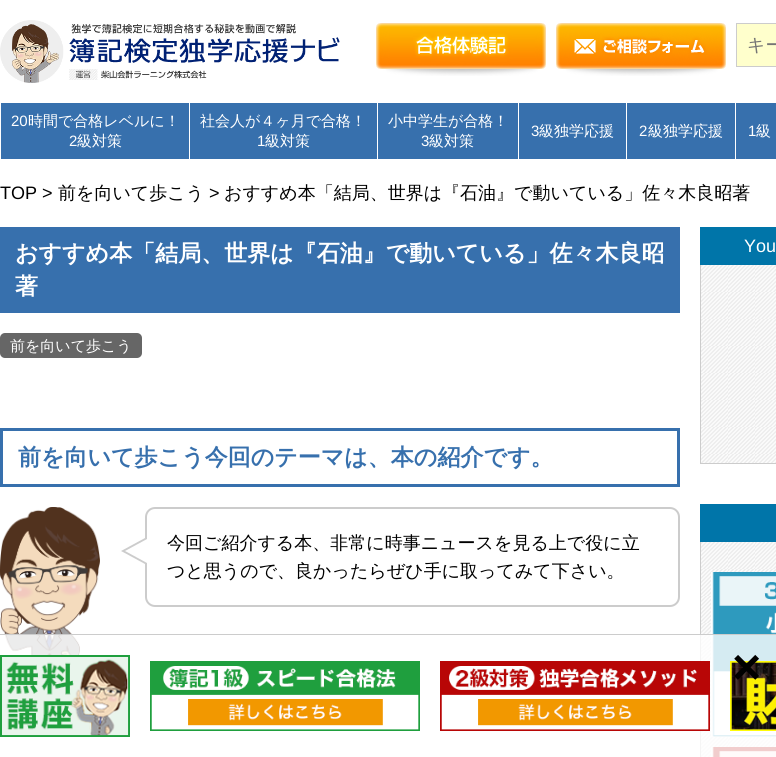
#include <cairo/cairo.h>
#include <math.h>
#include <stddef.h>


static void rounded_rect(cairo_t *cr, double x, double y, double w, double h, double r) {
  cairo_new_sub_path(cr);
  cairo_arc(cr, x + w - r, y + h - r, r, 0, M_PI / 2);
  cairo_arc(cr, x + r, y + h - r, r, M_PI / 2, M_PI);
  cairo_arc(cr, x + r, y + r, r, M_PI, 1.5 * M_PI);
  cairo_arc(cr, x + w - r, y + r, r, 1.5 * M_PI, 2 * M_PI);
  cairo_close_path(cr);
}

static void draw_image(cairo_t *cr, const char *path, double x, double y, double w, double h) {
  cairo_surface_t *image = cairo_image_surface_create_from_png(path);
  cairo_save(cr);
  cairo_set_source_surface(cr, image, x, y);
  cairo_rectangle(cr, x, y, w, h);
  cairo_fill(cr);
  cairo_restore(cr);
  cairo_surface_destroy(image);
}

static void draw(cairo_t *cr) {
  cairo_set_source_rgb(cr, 1, 1, 1);
  cairo_paint(cr);
  draw_image(cr, "images/1.png", 0, 20, 340, 63);
  draw_image(cr, "images/2.png", 376, 23, 170, 53);
  draw_image(cr, "images/3.png", 556, 23, 170, 53);
  cairo_set_source_rgb(cr, 1, 1, 204 / 255.0);
  cairo_rectangle(cr, 736.5, 23.5, 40, 43);
  cairo_fill_preserve(cr);
  cairo_set_source_rgb(cr, 204 / 255.0, 204 / 255.0, 204 / 255.0);
  cairo_set_line_width(cr, 1);
  cairo_stroke(cr);
  cairo_set_source_rgb(cr, 55 / 255.0, 112 / 255.0, 173 / 255.0);
  cairo_rectangle(cr, 1, 103, 775, 56);
  cairo_fill(cr);
  cairo_set_source_rgb(cr, 1, 1, 1);
  cairo_rectangle(cr, 189, 103, 1, 56);
  cairo_fill(cr);
  cairo_rectangle(cr, 377, 103, 1, 56);
  cairo_fill(cr);
  cairo_rectangle(cr, 518, 103, 1, 56);
  cairo_fill(cr);
  cairo_rectangle(cr, 626, 103, 1, 56);
  cairo_fill(cr);
  cairo_rectangle(cr, 735, 103, 1, 56);
  cairo_fill(cr);
  cairo_set_source_rgb(cr, 55 / 255.0, 112 / 255.0, 173 / 255.0);
  cairo_rectangle(cr, 0, 227, 680, 86);
  cairo_fill(cr);
  cairo_set_source_rgb(cr, 102 / 255.0, 102 / 255.0, 102 / 255.0);
  rounded_rect(cr, 0, 333, 142, 25, 5);
  cairo_fill(cr);
  cairo_rectangle(cr, 1.5, 429.5, 677, 56);
  cairo_set_source_rgb(cr, 55 / 255.0, 112 / 255.0, 173 / 255.0);
  cairo_set_line_width(cr, 3);
  cairo_stroke(cr);
  draw_image(cr, "images/4.png", 0, 507, 100, 148);
  rounded_rect(cr, 146, 508, 533, 98, 9);
  cairo_set_source_rgb(cr, 204 / 255.0, 204 / 255.0, 204 / 255.0);
  cairo_set_line_width(cr, 2);
  cairo_stroke(cr);
  cairo_new_path(cr);
  cairo_move_to(cr, 145, 538);
  cairo_line_to(cr, 145, 564);
  cairo_line_to(cr, 121, 551);
  cairo_close_path(cr);
  cairo_fill(cr);
  cairo_set_source_rgb(cr, 1, 1, 1);
  cairo_new_path(cr);
  cairo_move_to(cr, 147, 539);
  cairo_line_to(cr, 147, 563);
  cairo_line_to(cr, 125, 551);
  cairo_close_path(cr);
  cairo_fill(cr);
  cairo_set_source_rgb(cr, 0, 117 / 255.0, 169 / 255.0);
  cairo_rectangle(cr, 700, 227, 76, 38);
  cairo_fill(cr);
  draw_image(cr, "images/5.png", 701, 265, 75, 198);
  cairo_set_source_rgb(cr, 204 / 255.0, 204 / 255.0, 204 / 255.0);
  cairo_rectangle(cr, 700, 463, 76, 1);
  cairo_fill(cr);
  cairo_rectangle(cr, 700, 265, 1, 199);
  cairo_fill(cr);
  cairo_set_source_rgb(cr, 0, 117 / 255.0, 169 / 255.0);
  cairo_rectangle(cr, 700, 504, 76, 38);
  cairo_fill(cr);
  draw_image(cr, "images/6.png", 701, 542, 75, 215);
  cairo_set_source_rgb(cr, 204 / 255.0, 204 / 255.0, 204 / 255.0);
  cairo_rectangle(cr, 700, 542, 1, 215);
  cairo_fill(cr);
  draw_image(cr, "images/7.png", 711, 572, 65, 165);
  draw_image(cr, "images/8.png", 711, 747, 65, 10);
  cairo_set_source_rgba(cr, 1, 1, 1, 0.8);
  cairo_rectangle(cr, 4, 635, 772, 122);
  cairo_fill(cr);
  cairo_set_source_rgb(cr, 204 / 255.0, 204 / 255.0, 204 / 255.0);
  cairo_rectangle(cr, 0, 634, 776, 1);
  cairo_fill(cr);
  draw_image(cr, "images/9.png", 0, 655, 130, 82);
  draw_image(cr, "images/10.png", 150, 661, 270, 70);
  draw_image(cr, "images/11.png", 440, 661, 270, 70);
  draw_image(cr, "images/12.png", 730, 661, 46, 70);
  cairo_select_font_face(cr, "WenQuanYi Zen Hei Medium", CAIRO_FONT_SLANT_NORMAL, CAIRO_FONT_WEIGHT_NORMAL);
  cairo_set_font_size(cr, 18);
  cairo_set_source_rgb(cr, 117 / 255.0, 117 / 255.0, 117 / 255.0);
  cairo_move_to(cr, 747, 51);
  cairo_show_text(cr, "キー");
  cairo_select_font_face(cr, "Liberation Sans", CAIRO_FONT_SLANT_NORMAL, CAIRO_FONT_WEIGHT_NORMAL);
  cairo_set_font_size(cr, 15);
  cairo_set_source_rgb(cr, 1, 1, 1);
  cairo_move_to(cr, 11, 126);
  cairo_show_text(cr, "20");
  cairo_select_font_face(cr, "WenQuanYi Zen Hei Medium", CAIRO_FONT_SLANT_NORMAL, CAIRO_FONT_WEIGHT_NORMAL);
  cairo_move_to(cr, 28, 126);
  cairo_show_text(cr, "時間で合格レベルに！");
  cairo_select_font_face(cr, "Liberation Sans", CAIRO_FONT_SLANT_NORMAL, CAIRO_FONT_WEIGHT_NORMAL);
  cairo_move_to(cr, 69, 146);
  cairo_show_text(cr, "2");
  cairo_select_font_face(cr, "WenQuanYi Zen Hei Medium", CAIRO_FONT_SLANT_NORMAL, CAIRO_FONT_WEIGHT_NORMAL);
  cairo_move_to(cr, 77, 146);
  cairo_show_text(cr, "級対策");
  cairo_move_to(cr, 200, 126);
  cairo_show_text(cr, "社会人が４ヶ月で合格！");
  cairo_select_font_face(cr, "Liberation Sans", CAIRO_FONT_SLANT_NORMAL, CAIRO_FONT_WEIGHT_NORMAL);
  cairo_move_to(cr, 257, 146);
  cairo_show_text(cr, "1");
  cairo_select_font_face(cr, "WenQuanYi Zen Hei Medium", CAIRO_FONT_SLANT_NORMAL, CAIRO_FONT_WEIGHT_NORMAL);
  cairo_move_to(cr, 265, 146);
  cairo_show_text(cr, "級対策");
  cairo_move_to(cr, 388, 126);
  cairo_show_text(cr, "小中学生が合格！");
  cairo_select_font_face(cr, "Liberation Sans", CAIRO_FONT_SLANT_NORMAL, CAIRO_FONT_WEIGHT_NORMAL);
  cairo_move_to(cr, 421, 146);
  cairo_show_text(cr, "3");
  cairo_select_font_face(cr, "WenQuanYi Zen Hei Medium", CAIRO_FONT_SLANT_NORMAL, CAIRO_FONT_WEIGHT_NORMAL);
  cairo_move_to(cr, 429, 146);
  cairo_show_text(cr, "級対策");
  cairo_select_font_face(cr, "Liberation Sans", CAIRO_FONT_SLANT_NORMAL, CAIRO_FONT_WEIGHT_NORMAL);
  cairo_move_to(cr, 531, 136);
  cairo_show_text(cr, "3");
  cairo_select_font_face(cr, "WenQuanYi Zen Hei Medium", CAIRO_FONT_SLANT_NORMAL, CAIRO_FONT_WEIGHT_NORMAL);
  cairo_move_to(cr, 539, 136);
  cairo_show_text(cr, "級独学応援");
  cairo_select_font_face(cr, "Liberation Sans", CAIRO_FONT_SLANT_NORMAL, CAIRO_FONT_WEIGHT_NORMAL);
  cairo_move_to(cr, 639, 136);
  cairo_show_text(cr, "2");
  cairo_select_font_face(cr, "WenQuanYi Zen Hei Medium", CAIRO_FONT_SLANT_NORMAL, CAIRO_FONT_WEIGHT_NORMAL);
  cairo_move_to(cr, 648, 136);
  cairo_show_text(cr, "級独学応援");
  cairo_select_font_face(cr, "Liberation Sans", CAIRO_FONT_SLANT_NORMAL, CAIRO_FONT_WEIGHT_NORMAL);
  cairo_move_to(cr, 748, 136);
  cairo_show_text(cr, "1");
  cairo_select_font_face(cr, "WenQuanYi Zen Hei Medium", CAIRO_FONT_SLANT_NORMAL, CAIRO_FONT_WEIGHT_NORMAL);
  cairo_move_to(cr, 756, 136);
  cairo_show_text(cr, "級");
  cairo_select_font_face(cr, "Liberation Sans", CAIRO_FONT_SLANT_NORMAL, CAIRO_FONT_WEIGHT_NORMAL);
  cairo_set_font_size(cr, 18);
  cairo_set_source_rgb(cr, 0, 0, 0);
  cairo_move_to(cr, 0, 199);
  cairo_show_text(cr, "TOP >");
  cairo_select_font_face(cr, "WenQuanYi Zen Hei Medium", CAIRO_FONT_SLANT_NORMAL, CAIRO_FONT_WEIGHT_NORMAL);
  cairo_move_to(cr, 58, 199);
  cairo_show_text(cr, "前を向いて歩こう");
  cairo_select_font_face(cr, "Liberation Sans", CAIRO_FONT_SLANT_NORMAL, CAIRO_FONT_WEIGHT_NORMAL);
  cairo_move_to(cr, 209, 199);
  cairo_show_text(cr, ">");
  cairo_select_font_face(cr, "WenQuanYi Zen Hei Medium", CAIRO_FONT_SLANT_NORMAL, CAIRO_FONT_WEIGHT_NORMAL);
  cairo_move_to(cr, 224, 199);
  cairo_show_text(cr, "おすすめ本「結局、世界は『石油』で動いている」佐々木良昭著");
  cairo_select_font_face(cr, "WenQuanYi Zen Hei", CAIRO_FONT_SLANT_NORMAL, CAIRO_FONT_WEIGHT_BOLD);
  cairo_set_font_size(cr, 23);
  cairo_set_source_rgb(cr, 1, 1, 1);
  cairo_move_to(cr, 15, 261);
  cairo_show_text(cr, "おすすめ本「結局、世界は『石油』で動いている」佐々木良昭");
  cairo_move_to(cr, 15, 294);
  cairo_show_text(cr, "著");
  cairo_select_font_face(cr, "WenQuanYi Zen Hei Medium", CAIRO_FONT_SLANT_NORMAL, CAIRO_FONT_WEIGHT_NORMAL);
  cairo_set_font_size(cr, 15);
  cairo_move_to(cr, 10, 351);
  cairo_show_text(cr, "前を向いて歩こう");
  cairo_select_font_face(cr, "WenQuanYi Zen Hei", CAIRO_FONT_SLANT_NORMAL, CAIRO_FONT_WEIGHT_BOLD);
  cairo_set_font_size(cr, 23);
  cairo_set_source_rgb(cr, 55 / 255.0, 112 / 255.0, 173 / 255.0);
  cairo_move_to(cr, 18, 465);
  cairo_show_text(cr, "前を向いて歩こう今回のテーマは、本の紹介です。");
  cairo_select_font_face(cr, "WenQuanYi Zen Hei Medium", CAIRO_FONT_SLANT_NORMAL, CAIRO_FONT_WEIGHT_NORMAL);
  cairo_set_font_size(cr, 18);
  cairo_set_source_rgb(cr, 0, 0, 0);
  cairo_move_to(cr, 167, 549);
  cairo_show_text(cr, "今回ご紹介する本、非常に時事ニュースを見る上で役に立");
  cairo_move_to(cr, 167, 577);
  cairo_show_text(cr, "つと思うので、良かったらぜひ手に取ってみて下さい。");
  cairo_select_font_face(cr, "Liberation Sans", CAIRO_FONT_SLANT_NORMAL, CAIRO_FONT_WEIGHT_NORMAL);
  cairo_set_source_rgb(cr, 1, 1, 1);
  cairo_move_to(cr, 744, 252);
  cairo_show_text(cr, "You");
  cairo_select_font_face(cr, "Liberation Sans", CAIRO_FONT_SLANT_NORMAL, CAIRO_FONT_WEIGHT_BOLD);
  cairo_set_font_size(cr, 50);
  cairo_set_source_rgb(cr, 0, 0, 0);
  cairo_move_to(cr, 732, 684);
  cairo_show_text(cr, "×");
}

int main(void) {
  cairo_surface_t *surface = cairo_image_surface_create(CAIRO_FORMAT_RGB24, 776, 757);
  cairo_t *cr = cairo_create(surface);
  cairo_font_options_t *options = cairo_font_options_create();
  cairo_font_options_set_hint_metrics(options, CAIRO_HINT_METRICS_OFF);
  cairo_font_options_set_hint_style(options, CAIRO_HINT_STYLE_NONE);
  cairo_set_font_options(cr, options);
  cairo_set_miter_limit(cr, 4);
  draw(cr);
  cairo_surface_write_to_png(surface, "out.png");
  cairo_font_options_destroy(options);
  cairo_destroy(cr);
  cairo_surface_destroy(surface);
  return 0;
}
